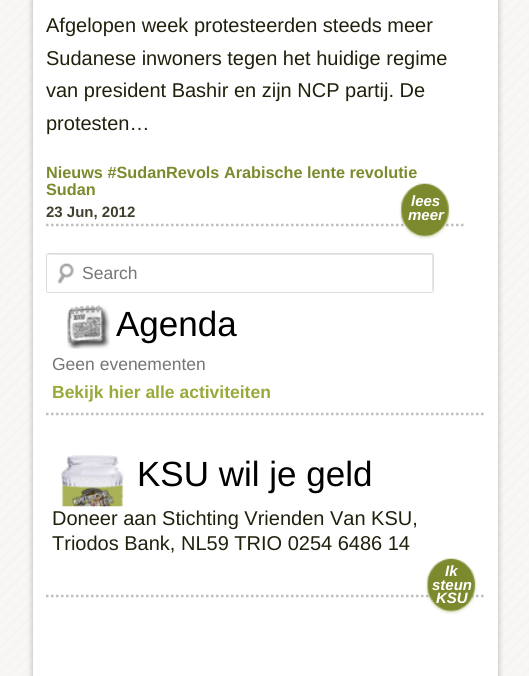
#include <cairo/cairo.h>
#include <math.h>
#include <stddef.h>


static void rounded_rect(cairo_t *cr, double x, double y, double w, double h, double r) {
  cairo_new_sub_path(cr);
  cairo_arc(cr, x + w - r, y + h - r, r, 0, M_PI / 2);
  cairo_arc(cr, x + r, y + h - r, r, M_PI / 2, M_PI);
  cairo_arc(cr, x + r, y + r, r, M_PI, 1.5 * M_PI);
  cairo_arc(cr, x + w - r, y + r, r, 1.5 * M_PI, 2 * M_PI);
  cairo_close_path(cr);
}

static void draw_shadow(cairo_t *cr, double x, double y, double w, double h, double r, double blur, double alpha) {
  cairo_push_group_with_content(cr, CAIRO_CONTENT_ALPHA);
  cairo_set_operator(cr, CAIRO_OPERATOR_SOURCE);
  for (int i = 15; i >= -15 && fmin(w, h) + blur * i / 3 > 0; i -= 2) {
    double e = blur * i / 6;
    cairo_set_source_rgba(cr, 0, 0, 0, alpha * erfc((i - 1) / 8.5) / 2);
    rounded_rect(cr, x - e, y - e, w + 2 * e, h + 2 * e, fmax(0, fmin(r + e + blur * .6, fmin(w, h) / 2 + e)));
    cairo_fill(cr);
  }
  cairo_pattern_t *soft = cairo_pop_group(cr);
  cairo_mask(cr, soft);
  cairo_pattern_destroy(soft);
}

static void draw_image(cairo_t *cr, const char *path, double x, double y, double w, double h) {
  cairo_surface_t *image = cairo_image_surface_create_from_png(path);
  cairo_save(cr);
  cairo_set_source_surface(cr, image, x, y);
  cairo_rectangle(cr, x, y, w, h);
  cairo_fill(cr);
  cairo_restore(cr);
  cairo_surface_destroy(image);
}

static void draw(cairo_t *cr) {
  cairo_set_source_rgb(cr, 1, 1, 1);
  cairo_paint(cr);
  draw_image(cr, "images/1.png", 0, 0, 529, 676);
  cairo_set_source_rgb(cr, 0, 0, 0);
  draw_shadow(cr, 33, -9, 465, 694, 0, 3, 0.3);
  cairo_set_source_rgb(cr, 1, 1, 1);
  cairo_rectangle(cr, 33, 0, 465, 676);
  cairo_fill(cr);
  cairo_new_path(cr);
  cairo_move_to(cr, 46, 225);
  cairo_line_to(cr, 464, 225);
  cairo_set_source_rgb(cr, 192 / 255.0, 192 / 255.0, 192 / 255.0);
  cairo_set_line_width(cr, 2.5);
  cairo_set_dash(cr, (double[]){2.5, 2.5}, 2, 0);
  cairo_stroke(cr);
  draw_image(cr, "images/2.png", 399, 183, 52, 57);
  draw_image(cr, "images/3.png", 57, 262, 17, 22);
  cairo_set_source_rgb(cr, 230 / 255.0, 230 / 255.0, 230 / 255.0);
  cairo_new_path(cr);
  cairo_move_to(cr, 49, 255);
  cairo_line_to(cr, 431, 255);
  cairo_curve_to(cr, 432, 255, 432, 256, 432, 256);
  cairo_line_to(cr, 432, 291);
  cairo_line_to(cr, 433, 290);
  cairo_line_to(cr, 433, 254);
  cairo_line_to(cr, 432, 254);
  cairo_line_to(cr, 49, 254);
  cairo_line_to(cr, 48, 256);
  cairo_close_path(cr);
  cairo_fill(cr);
  rounded_rect(cr, 46.5, 253.5, 387, 39, 2);
  cairo_set_source_rgb(cr, 221 / 255.0, 221 / 255.0, 221 / 255.0);
  cairo_set_line_width(cr, 1);
  cairo_set_dash(cr, NULL, 0, 0);
  cairo_stroke(cr);
  cairo_new_path(cr);
  cairo_move_to(cr, 46, 414);
  cairo_line_to(cr, 484, 414);
  cairo_set_source_rgb(cr, 192 / 255.0, 192 / 255.0, 192 / 255.0);
  cairo_set_line_width(cr, 2.5);
  cairo_set_dash(cr, (double[]){2.5, 2.5}, 2, 0);
  cairo_stroke(cr);
  draw_image(cr, "images/4.png", 67, 305, 43, 44);
  cairo_new_path(cr);
  cairo_move_to(cr, 46, 596);
  cairo_line_to(cr, 484, 596);
  cairo_stroke(cr);
  draw_image(cr, "images/5.png", 61, 455, 63, 52);
  draw_image(cr, "images/6.png", 425, 558, 52, 57);
  cairo_select_font_face(cr, "Liberation Sans", CAIRO_FONT_SLANT_NORMAL, CAIRO_FONT_WEIGHT_NORMAL);
  cairo_set_font_size(cr, 20);
  cairo_set_source_rgb(cr, 33 / 255.0, 32 / 255.0, 13 / 255.0);
  cairo_move_to(cr, 46, 32);
  cairo_show_text(cr, "Afgelopen week protesteerden steeds meer");
  cairo_move_to(cr, 46, 65);
  cairo_show_text(cr, "Sudanese inwoners tegen het huidige regime");
  cairo_move_to(cr, 46, 97);
  cairo_show_text(cr, "van president Bashir en zijn NCP partij. De");
  cairo_move_to(cr, 46, 130);
  cairo_show_text(cr, "protesten…");
  cairo_select_font_face(cr, "Liberation Sans", CAIRO_FONT_SLANT_NORMAL, CAIRO_FONT_WEIGHT_BOLD);
  cairo_set_font_size(cr, 16.25);
  cairo_set_source_rgb(cr, 124 / 255.0, 137 / 255.0, 44 / 255.0);
  cairo_move_to(cr, 46, 178);
  cairo_show_text(cr, "Nieuws #SudanRevols Arabische lente revolutie");
  cairo_move_to(cr, 46, 195);
  cairo_show_text(cr, "Sudan");
  cairo_set_font_size(cr, 15);
  cairo_set_source_rgb(cr, 65 / 255.0, 64 / 255.0, 45 / 255.0);
  cairo_move_to(cr, 46, 217);
  cairo_show_text(cr, "23 Jun, 2012");
  cairo_select_font_face(cr, "Liberation Sans", CAIRO_FONT_SLANT_ITALIC, CAIRO_FONT_WEIGHT_BOLD);
  cairo_set_source_rgb(cr, 1, 1, 1);
  cairo_move_to(cr, 411, 206);
  cairo_show_text(cr, "lees");
  cairo_move_to(cr, 408, 220);
  cairo_show_text(cr, "meer");
  cairo_select_font_face(cr, "Liberation Sans", CAIRO_FONT_SLANT_NORMAL, CAIRO_FONT_WEIGHT_NORMAL);
  cairo_set_font_size(cr, 17.5);
  cairo_set_source_rgb(cr, 117 / 255.0, 117 / 255.0, 117 / 255.0);
  cairo_move_to(cr, 82, 279);
  cairo_show_text(cr, "Search");
  cairo_set_font_size(cr, 35);
  cairo_set_source_rgb(cr, 0, 0, 0);
  cairo_move_to(cr, 116, 336);
  cairo_show_text(cr, "Agenda");
  cairo_set_font_size(cr, 17.5);
  cairo_set_source_rgb(cr, 117 / 255.0, 117 / 255.0, 117 / 255.0);
  cairo_move_to(cr, 52, 370);
  cairo_show_text(cr, "Geen evenementen");
  cairo_select_font_face(cr, "Liberation Sans", CAIRO_FONT_SLANT_NORMAL, CAIRO_FONT_WEIGHT_BOLD);
  cairo_set_source_rgb(cr, 154 / 255.0, 169 / 255.0, 58 / 255.0);
  cairo_move_to(cr, 52, 398);
  cairo_show_text(cr, "Bekijk hier alle activiteiten");
  cairo_select_font_face(cr, "Liberation Sans", CAIRO_FONT_SLANT_NORMAL, CAIRO_FONT_WEIGHT_NORMAL);
  cairo_set_font_size(cr, 35);
  cairo_set_source_rgb(cr, 0, 0, 0);
  cairo_move_to(cr, 137, 486);
  cairo_show_text(cr, "KSU wil je geld");
  cairo_set_font_size(cr, 20);
  cairo_set_source_rgb(cr, 33 / 255.0, 32 / 255.0, 13 / 255.0);
  cairo_move_to(cr, 52, 525);
  cairo_show_text(cr, "Doneer aan Stichting Vrienden Van KSU,");
  cairo_move_to(cr, 52, 550);
  cairo_show_text(cr, "Triodos Bank, NL59 TRIO 0254 6486 14");
  cairo_select_font_face(cr, "Liberation Sans", CAIRO_FONT_SLANT_ITALIC, CAIRO_FONT_WEIGHT_BOLD);
  cairo_set_font_size(cr, 15);
  cairo_set_source_rgb(cr, 1, 1, 1);
  cairo_move_to(cr, 445, 576);
  cairo_show_text(cr, "Ik");
  cairo_move_to(cr, 432, 590);
  cairo_show_text(cr, "steun");
  cairo_move_to(cr, 436, 603);
  cairo_show_text(cr, "KSU");
}

int main(void) {
  cairo_surface_t *surface = cairo_image_surface_create(CAIRO_FORMAT_RGB24, 529, 676);
  cairo_t *cr = cairo_create(surface);
  cairo_font_options_t *options = cairo_font_options_create();
  cairo_font_options_set_hint_metrics(options, CAIRO_HINT_METRICS_OFF);
  cairo_font_options_set_hint_style(options, CAIRO_HINT_STYLE_NONE);
  cairo_set_font_options(cr, options);
  cairo_set_miter_limit(cr, 4);
  draw(cr);
  cairo_surface_write_to_png(surface, "out.png");
  cairo_font_options_destroy(options);
  cairo_destroy(cr);
  cairo_surface_destroy(surface);
  return 0;
}
